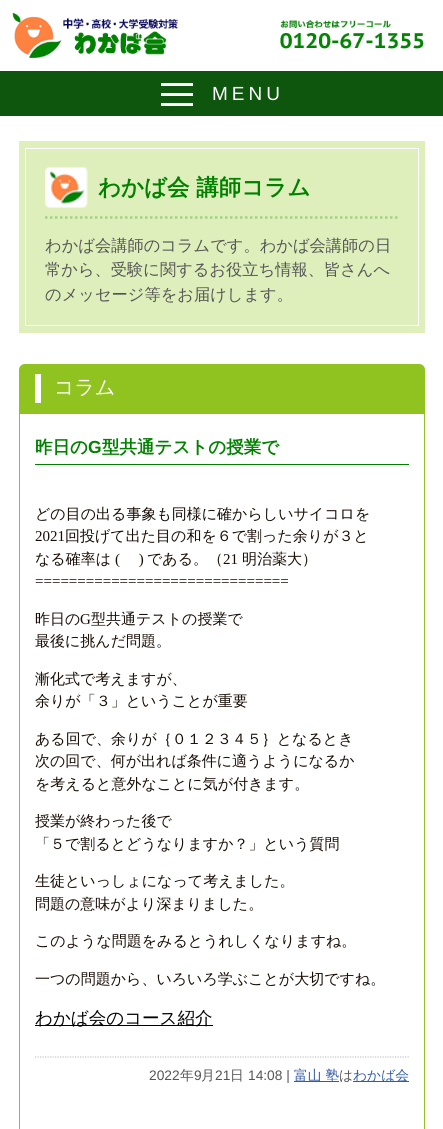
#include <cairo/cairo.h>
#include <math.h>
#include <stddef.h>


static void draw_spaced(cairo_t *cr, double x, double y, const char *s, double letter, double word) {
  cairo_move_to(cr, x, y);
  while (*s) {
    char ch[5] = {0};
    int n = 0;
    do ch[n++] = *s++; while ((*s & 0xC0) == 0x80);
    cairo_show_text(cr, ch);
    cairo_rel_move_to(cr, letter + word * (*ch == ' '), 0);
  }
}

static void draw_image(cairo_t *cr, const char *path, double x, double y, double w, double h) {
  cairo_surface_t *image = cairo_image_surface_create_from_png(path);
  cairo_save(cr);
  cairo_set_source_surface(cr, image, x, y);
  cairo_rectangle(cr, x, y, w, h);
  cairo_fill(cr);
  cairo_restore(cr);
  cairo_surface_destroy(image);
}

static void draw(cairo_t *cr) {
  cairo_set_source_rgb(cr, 1, 1, 1);
  cairo_paint(cr);
  draw_image(cr, "images/1.png", 12, 12, 166, 47);
  draw_image(cr, "images/2.png", 280, 20, 144, 29);
  cairo_set_source_rgb(cr, 14 / 255.0, 85 / 255.0, 14 / 255.0);
  cairo_rectangle(cr, 0, 71, 443, 45);
  cairo_fill(cr);
  cairo_set_source_rgb(cr, 1, 1, 1);
  cairo_rectangle(cr, 161, 83, 32, 3);
  cairo_fill(cr);
  cairo_rectangle(cr, 161, 93, 32, 3);
  cairo_fill(cr);
  cairo_rectangle(cr, 161, 103, 32, 3);
  cairo_fill(cr);
  cairo_set_source_rgb(cr, 222 / 255.0, 239 / 255.0, 187 / 255.0);
  cairo_rectangle(cr, 19, 141, 406, 192);
  cairo_fill(cr);
  cairo_rectangle(cr, 25.5, 148.5, 393, 177);
  cairo_set_source_rgb(cr, 1, 1, 1);
  cairo_set_line_width(cr, 1);
  cairo_stroke(cr);
  draw_image(cr, "images/3.png", 45, 167, 43, 41);
  cairo_new_path(cr);
  cairo_move_to(cr, 45, 217.5);
  cairo_line_to(cr, 399, 217.5);
  cairo_set_source_rgb(cr, 163 / 255.0, 209 / 255.0, 136 / 255.0);
  cairo_set_line_width(cr, 2.5);
  cairo_set_dash(cr, (double[]){2.5, 2.5}, 2, 0);
  cairo_stroke(cr);
  cairo_set_source_rgb(cr, 144 / 255.0, 195 / 255.0, 32 / 255.0);
  cairo_new_path(cr);
  cairo_move_to(cr, 25, 364);
  cairo_line_to(cr, 419, 364);
  cairo_curve_to(cr, 422.5, 364, 425, 366.5, 425, 370);
  cairo_line_to(cr, 425, 413);
  cairo_line_to(cr, 19, 413);
  cairo_line_to(cr, 19, 370);
  cairo_curve_to(cr, 19, 366.5, 21.5, 364, 25, 364);
  cairo_close_path(cr);
  cairo_fill(cr);
  cairo_set_source_rgb(cr, 1, 1, 1);
  cairo_rectangle(cr, 35, 374, 6, 29);
  cairo_fill(cr);
  cairo_rectangle(cr, 19.5, 413.5, 405, 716);
  cairo_set_source_rgb(cr, 144 / 255.0, 195 / 255.0, 32 / 255.0);
  cairo_set_line_width(cr, 1);
  cairo_set_dash(cr, NULL, 0, 0);
  cairo_stroke(cr);
  cairo_set_source_rgb(cr, 0, 129 / 255.0, 0);
  cairo_rectangle(cr, 35, 464, 374, 1);
  cairo_fill(cr);
  cairo_set_source_rgb(cr, 0, 0, 0);
  cairo_rectangle(cr, 35, 1025, 178, 1);
  cairo_fill(cr);
  cairo_new_path(cr);
  cairo_move_to(cr, 35, 1057);
  cairo_line_to(cr, 409, 1057);
  cairo_set_source_rgb(cr, 199 / 255.0, 199 / 255.0, 199 / 255.0);
  cairo_set_line_width(cr, 1.2);
  cairo_set_dash(cr, (double[]){1.25, 1.25}, 2, 0);
  cairo_stroke(cr);
  cairo_set_source_rgb(cr, 51 / 255.0, 92 / 255.0, 167 / 255.0);
  cairo_rectangle(cr, 294, 1081, 45, 1);
  cairo_fill(cr);
  cairo_rectangle(cr, 353, 1081, 56, 1);
  cairo_fill(cr);
  cairo_select_font_face(cr, "Liberation Sans", CAIRO_FONT_SLANT_NORMAL, CAIRO_FONT_WEIGHT_NORMAL);
  cairo_set_font_size(cr, 19);
  cairo_set_source_rgb(cr, 1, 1, 1);
  draw_spaced(cr, 212, 100, "MENU", 4, 0);
  cairo_select_font_face(cr, "WenQuanYi Zen Hei", CAIRO_FONT_SLANT_NORMAL, CAIRO_FONT_WEIGHT_BOLD);
  cairo_set_font_size(cr, 22.5);
  cairo_set_source_rgb(cr, 0, 129 / 255.0, 0);
  cairo_move_to(cr, 98, 195);
  cairo_show_text(cr, "わかば会 講師コラム");
  cairo_select_font_face(cr, "WenQuanYi Zen Hei Medium", CAIRO_FONT_SLANT_NORMAL, CAIRO_FONT_WEIGHT_NORMAL);
  cairo_set_font_size(cr, 16.25);
  cairo_set_source_rgb(cr, 85 / 255.0, 85 / 255.0, 85 / 255.0);
  cairo_move_to(cr, 45, 251);
  cairo_show_text(cr, "わかば会講師のコラムです。わかば会講師の日");
  cairo_move_to(cr, 45, 275);
  cairo_show_text(cr, "常から、受験に関するお役立ち情報、皆さんへ");
  cairo_move_to(cr, 45, 300);
  cairo_show_text(cr, "のメッセージ等をお届けします。");
  cairo_set_font_size(cr, 20);
  cairo_set_source_rgb(cr, 1, 1, 1);
  cairo_move_to(cr, 54, 394);
  cairo_show_text(cr, "コラム");
  cairo_select_font_face(cr, "WenQuanYi Zen Hei", CAIRO_FONT_SLANT_NORMAL, CAIRO_FONT_WEIGHT_BOLD);
  cairo_set_font_size(cr, 17.5);
  cairo_set_source_rgb(cr, 0, 129 / 255.0, 0);
  cairo_move_to(cr, 35, 453);
  cairo_show_text(cr, "昨日の");
  cairo_select_font_face(cr, "Liberation Sans", CAIRO_FONT_SLANT_NORMAL, CAIRO_FONT_WEIGHT_BOLD);
  cairo_move_to(cr, 88, 453);
  cairo_show_text(cr, "G");
  cairo_select_font_face(cr, "WenQuanYi Zen Hei", CAIRO_FONT_SLANT_NORMAL, CAIRO_FONT_WEIGHT_BOLD);
  cairo_move_to(cr, 102, 453);
  cairo_show_text(cr, "型共通テストの授業で");
  cairo_select_font_face(cr, "WenQuanYi Zen Hei Medium", CAIRO_FONT_SLANT_NORMAL, CAIRO_FONT_WEIGHT_NORMAL);
  cairo_set_font_size(cr, 15);
  cairo_set_source_rgb(cr, 24 / 255.0, 12 / 255.0, 6 / 255.0);
  cairo_move_to(cr, 35, 519);
  cairo_show_text(cr, "どの目の出る事象も同様に確からしいサイコロを");
  cairo_select_font_face(cr, "Liberation Serif", CAIRO_FONT_SLANT_NORMAL, CAIRO_FONT_WEIGHT_NORMAL);
  cairo_move_to(cr, 35, 541);
  cairo_show_text(cr, "2021");
  cairo_select_font_face(cr, "WenQuanYi Zen Hei Medium", CAIRO_FONT_SLANT_NORMAL, CAIRO_FONT_WEIGHT_NORMAL);
  cairo_move_to(cr, 65, 541);
  cairo_show_text(cr, "回投げて出た目の和を６で割った余りが３と");
  cairo_move_to(cr, 35, 564);
  cairo_show_text(cr, "なる確率は");
  cairo_select_font_face(cr, "Liberation Serif", CAIRO_FONT_SLANT_NORMAL, CAIRO_FONT_WEIGHT_NORMAL);
  cairo_move_to(cr, 115, 564);
  cairo_show_text(cr, "(     )");
  cairo_select_font_face(cr, "WenQuanYi Zen Hei Medium", CAIRO_FONT_SLANT_NORMAL, CAIRO_FONT_WEIGHT_NORMAL);
  cairo_move_to(cr, 147, 564);
  cairo_show_text(cr, "である。（");
  cairo_select_font_face(cr, "Liberation Serif", CAIRO_FONT_SLANT_NORMAL, CAIRO_FONT_WEIGHT_NORMAL);
  cairo_move_to(cr, 223, 564);
  cairo_show_text(cr, "21");
  cairo_select_font_face(cr, "WenQuanYi Zen Hei Medium", CAIRO_FONT_SLANT_NORMAL, CAIRO_FONT_WEIGHT_NORMAL);
  cairo_move_to(cr, 242, 564);
  cairo_show_text(cr, "明治薬大）");
  cairo_select_font_face(cr, "Liberation Serif", CAIRO_FONT_SLANT_NORMAL, CAIRO_FONT_WEIGHT_NORMAL);
  cairo_move_to(cr, 35, 586);
  cairo_show_text(cr, "==============================");
  cairo_select_font_face(cr, "WenQuanYi Zen Hei Medium", CAIRO_FONT_SLANT_NORMAL, CAIRO_FONT_WEIGHT_NORMAL);
  cairo_move_to(cr, 35, 624);
  cairo_show_text(cr, "昨日の");
  cairo_select_font_face(cr, "Liberation Serif", CAIRO_FONT_SLANT_NORMAL, CAIRO_FONT_WEIGHT_NORMAL);
  cairo_move_to(cr, 80, 624);
  cairo_show_text(cr, "G");
  cairo_select_font_face(cr, "WenQuanYi Zen Hei Medium", CAIRO_FONT_SLANT_NORMAL, CAIRO_FONT_WEIGHT_NORMAL);
  cairo_move_to(cr, 91, 624);
  cairo_show_text(cr, "型共通テストの授業で");
  cairo_move_to(cr, 35, 646);
  cairo_show_text(cr, "最後に挑んだ問題。");
  cairo_move_to(cr, 35, 684);
  cairo_show_text(cr, "漸化式で考えますが、");
  cairo_move_to(cr, 35, 706);
  cairo_show_text(cr, "余りが「３」ということが重要");
  cairo_move_to(cr, 35, 744);
  cairo_show_text(cr, "ある回で、余りが｛０１２３４５｝となるとき");
  cairo_move_to(cr, 35, 766);
  cairo_show_text(cr, "次の回で、何が出れば条件に適うようになるか");
  cairo_move_to(cr, 35, 789);
  cairo_show_text(cr, "を考えると意外なことに気が付きます。");
  cairo_move_to(cr, 35, 826);
  cairo_show_text(cr, "授業が終わった後で");
  cairo_move_to(cr, 35, 849);
  cairo_show_text(cr, "「５で割るとどうなりますか？」という質問");
  cairo_move_to(cr, 35, 886);
  cairo_show_text(cr, "生徒といっしょになって考えました。");
  cairo_move_to(cr, 35, 909);
  cairo_show_text(cr, "問題の意味がより深まりました。");
  cairo_move_to(cr, 35, 946);
  cairo_show_text(cr, "このような問題をみるとうれしくなりますね。");
  cairo_move_to(cr, 35, 984);
  cairo_show_text(cr, "一つの問題から、いろいろ学ぶことが大切ですね。");
  cairo_set_font_size(cr, 17.5);
  cairo_set_source_rgb(cr, 0, 0, 0);
  cairo_move_to(cr, 35, 1024);
  cairo_show_text(cr, "わかば会のコース紹介");
  cairo_select_font_face(cr, "Liberation Sans", CAIRO_FONT_SLANT_NORMAL, CAIRO_FONT_WEIGHT_NORMAL);
  cairo_set_font_size(cr, 13.75);
  cairo_set_source_rgb(cr, 85 / 255.0, 85 / 255.0, 85 / 255.0);
  cairo_move_to(cr, 149, 1080);
  cairo_show_text(cr, "2022");
  cairo_select_font_face(cr, "WenQuanYi Zen Hei Medium", CAIRO_FONT_SLANT_NORMAL, CAIRO_FONT_WEIGHT_NORMAL);
  cairo_move_to(cr, 180, 1080);
  cairo_show_text(cr, "年");
  cairo_select_font_face(cr, "Liberation Sans", CAIRO_FONT_SLANT_NORMAL, CAIRO_FONT_WEIGHT_NORMAL);
  cairo_move_to(cr, 194, 1080);
  cairo_show_text(cr, "9");
  cairo_select_font_face(cr, "WenQuanYi Zen Hei Medium", CAIRO_FONT_SLANT_NORMAL, CAIRO_FONT_WEIGHT_NORMAL);
  cairo_move_to(cr, 201, 1080);
  cairo_show_text(cr, "月");
  cairo_select_font_face(cr, "Liberation Sans", CAIRO_FONT_SLANT_NORMAL, CAIRO_FONT_WEIGHT_NORMAL);
  cairo_move_to(cr, 215, 1080);
  cairo_show_text(cr, "21");
  cairo_select_font_face(cr, "WenQuanYi Zen Hei Medium", CAIRO_FONT_SLANT_NORMAL, CAIRO_FONT_WEIGHT_NORMAL);
  cairo_move_to(cr, 230, 1080);
  cairo_show_text(cr, "日");
  cairo_select_font_face(cr, "Liberation Sans", CAIRO_FONT_SLANT_NORMAL, CAIRO_FONT_WEIGHT_NORMAL);
  cairo_move_to(cr, 248, 1080);
  cairo_show_text(cr, "14:08 |");
  cairo_select_font_face(cr, "WenQuanYi Zen Hei Medium", CAIRO_FONT_SLANT_NORMAL, CAIRO_FONT_WEIGHT_NORMAL);
  cairo_set_source_rgb(cr, 51 / 255.0, 92 / 255.0, 167 / 255.0);
  cairo_move_to(cr, 294, 1080);
  cairo_show_text(cr, "富山 塾");
  cairo_set_source_rgb(cr, 85 / 255.0, 85 / 255.0, 85 / 255.0);
  cairo_move_to(cr, 339, 1080);
  cairo_show_text(cr, "は");
  cairo_set_source_rgb(cr, 51 / 255.0, 92 / 255.0, 167 / 255.0);
  cairo_move_to(cr, 353, 1080);
  cairo_show_text(cr, "わかば会");
}

int main(void) {
  cairo_surface_t *surface = cairo_image_surface_create(CAIRO_FORMAT_RGB24, 443, 1129);
  cairo_t *cr = cairo_create(surface);
  cairo_font_options_t *options = cairo_font_options_create();
  cairo_font_options_set_hint_metrics(options, CAIRO_HINT_METRICS_OFF);
  cairo_font_options_set_hint_style(options, CAIRO_HINT_STYLE_NONE);
  cairo_set_font_options(cr, options);
  cairo_set_miter_limit(cr, 4);
  draw(cr);
  cairo_surface_write_to_png(surface, "out.png");
  cairo_font_options_destroy(options);
  cairo_destroy(cr);
  cairo_surface_destroy(surface);
  return 0;
}
